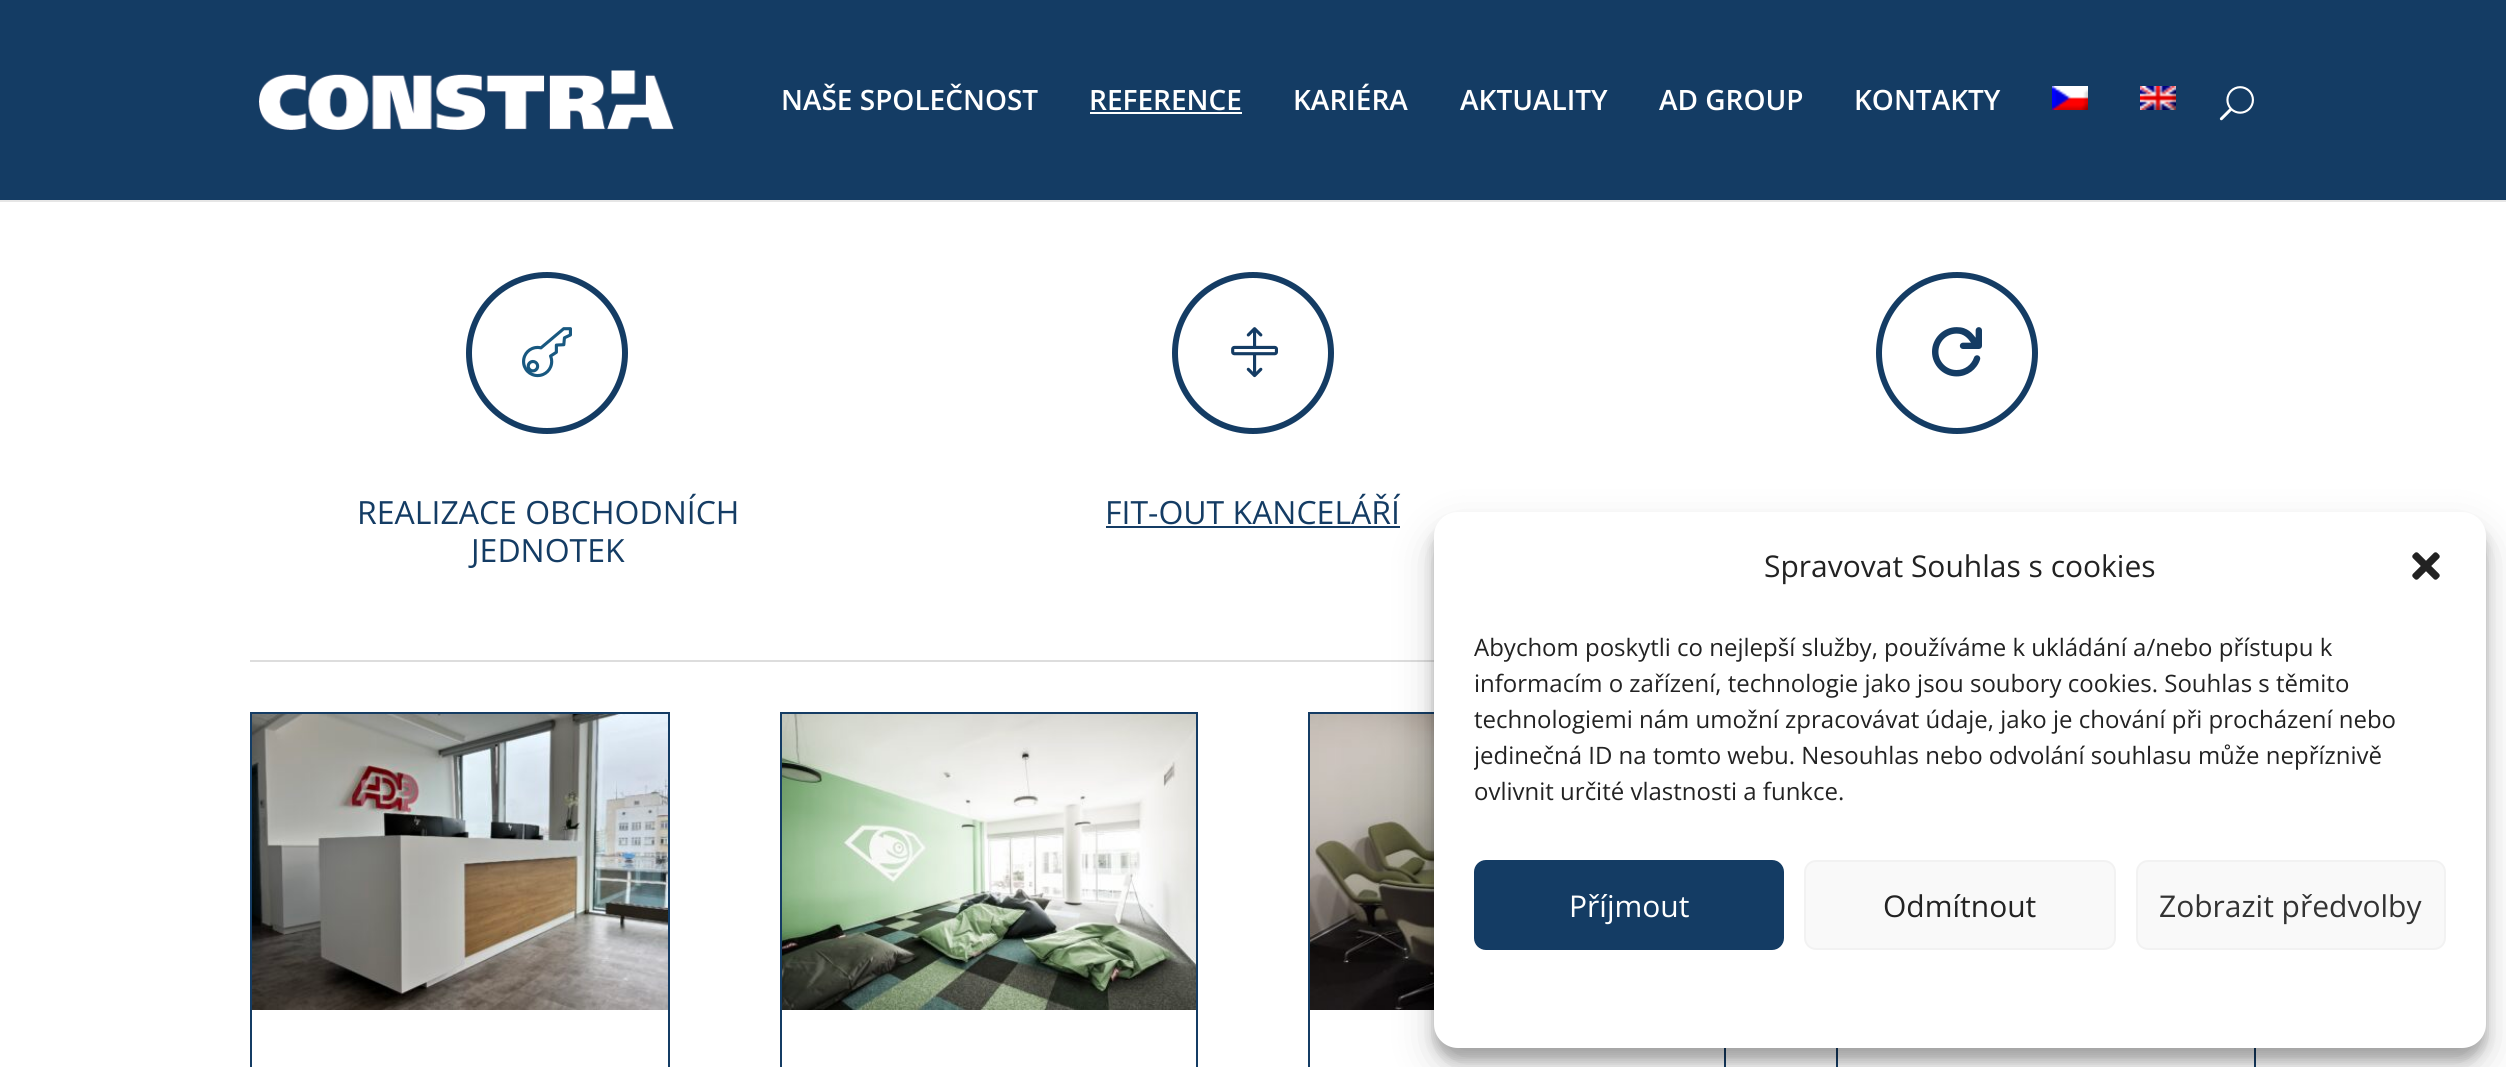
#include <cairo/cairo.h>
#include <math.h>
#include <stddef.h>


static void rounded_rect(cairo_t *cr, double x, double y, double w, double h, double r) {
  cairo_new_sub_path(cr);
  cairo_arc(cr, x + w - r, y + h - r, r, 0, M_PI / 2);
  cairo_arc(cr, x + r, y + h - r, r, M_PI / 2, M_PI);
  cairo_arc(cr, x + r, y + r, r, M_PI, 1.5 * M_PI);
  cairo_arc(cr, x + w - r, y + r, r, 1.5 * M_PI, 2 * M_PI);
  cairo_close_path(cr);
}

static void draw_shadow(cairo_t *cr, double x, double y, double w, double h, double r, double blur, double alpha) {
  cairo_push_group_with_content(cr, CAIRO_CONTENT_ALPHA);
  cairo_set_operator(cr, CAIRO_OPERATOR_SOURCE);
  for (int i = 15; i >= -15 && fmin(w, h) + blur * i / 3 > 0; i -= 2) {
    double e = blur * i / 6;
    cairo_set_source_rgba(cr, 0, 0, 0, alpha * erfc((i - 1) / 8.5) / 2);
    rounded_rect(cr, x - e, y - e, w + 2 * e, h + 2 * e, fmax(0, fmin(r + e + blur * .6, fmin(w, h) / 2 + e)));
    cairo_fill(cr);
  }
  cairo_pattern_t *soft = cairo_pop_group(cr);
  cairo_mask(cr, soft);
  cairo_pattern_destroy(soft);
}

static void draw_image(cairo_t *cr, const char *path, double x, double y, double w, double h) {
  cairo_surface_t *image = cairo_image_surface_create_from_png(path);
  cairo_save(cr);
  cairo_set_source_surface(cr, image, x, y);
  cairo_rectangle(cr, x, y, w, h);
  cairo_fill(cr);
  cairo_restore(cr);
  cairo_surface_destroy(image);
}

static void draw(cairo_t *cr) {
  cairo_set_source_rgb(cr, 1, 1, 1);
  cairo_paint(cr);
  cairo_set_source_rgb(cr, 230 / 255.0, 230 / 255.0, 230 / 255.0);
  cairo_rectangle(cr, 0, 200, 2506, 2);
  cairo_fill(cr);
  cairo_set_source_rgb(cr, 20 / 255.0, 60 / 255.0, 100 / 255.0);
  cairo_rectangle(cr, 0, 0, 2506, 200);
  cairo_fill(cr);
  draw_image(cr, "images/1.png", 259, 70, 415, 60);
  cairo_set_source_rgb(cr, 1, 1, 1);
  cairo_rectangle(cr, 1090, 112, 152, 2);
  cairo_fill(cr);
  draw_image(cr, "images/2.png", 2052, 86, 36, 24);
  draw_image(cr, "images/3.png", 2140, 86, 36, 24);
  draw_image(cr, "images/4.png", 2219, 86, 35, 35);
  cairo_set_source_rgb(cr, 221 / 255.0, 221 / 255.0, 221 / 255.0);
  cairo_rectangle(cr, 250, 660, 1184, 2);
  cairo_fill(cr);
  cairo_arc(cr, 1957, 353, 78, 0, 2 * M_PI);
  cairo_set_source_rgb(cr, 20 / 255.0, 60 / 255.0, 100 / 255.0);
  cairo_set_line_width(cr, 6);
  cairo_stroke(cr);
  draw_image(cr, "images/5.png", 1932, 327, 50, 50);
  cairo_arc(cr, 547, 353, 78, 0, 2 * M_PI);
  cairo_stroke(cr);
  draw_image(cr, "images/6.png", 522, 327, 50, 51);
  cairo_arc(cr, 1253, 353, 78, 0, 2 * M_PI);
  cairo_stroke(cr);
  draw_image(cr, "images/7.png", 1231, 327, 47, 51);
  cairo_rectangle(cr, 1106, 526, 294, 2);
  cairo_fill(cr);
  cairo_rectangle(cr, 251, 713, 418, 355);
  cairo_set_line_width(cr, 2);
  cairo_stroke(cr);
  draw_image(cr, "images/8.png", 252, 714, 416, 296);
  cairo_rectangle(cr, 781, 713, 416, 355);
  cairo_stroke(cr);
  draw_image(cr, "images/9.png", 782, 714, 414, 296);
  cairo_rectangle(cr, 1309, 713, 416, 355);
  cairo_stroke(cr);
  draw_image(cr, "images/10.png", 1310, 714, 124, 296);
  cairo_rectangle(cr, 1837, 713, 418, 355);
  cairo_stroke(cr);
  cairo_set_source_rgb(cr, 0, 0, 0);
  draw_shadow(cr, 1434, 524, 1052, 536, 24, 6, 0.23);
  draw_shadow(cr, 1434, 532, 1052, 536, 24, 20, 0.19);
  cairo_set_source_rgb(cr, 1, 1, 1);
  rounded_rect(cr, 1434, 512, 1052, 536, 24);
  cairo_fill(cr);
  draw_image(cr, "images/11.png", 2412, 552, 28, 28);
  cairo_set_source_rgb(cr, 20 / 255.0, 60 / 255.0, 100 / 255.0);
  rounded_rect(cr, 1475, 861, 308, 88, 11);
  cairo_fill_preserve(cr);
  cairo_stroke(cr);
  cairo_set_source_rgb(cr, 249 / 255.0, 249 / 255.0, 249 / 255.0);
  rounded_rect(cr, 1805, 861, 310, 88, 11);
  cairo_fill_preserve(cr);
  cairo_set_source_rgb(cr, 242 / 255.0, 242 / 255.0, 242 / 255.0);
  cairo_stroke(cr);
  cairo_set_source_rgb(cr, 249 / 255.0, 249 / 255.0, 249 / 255.0);
  rounded_rect(cr, 2137, 861, 308, 88, 11);
  cairo_fill_preserve(cr);
  cairo_set_source_rgb(cr, 242 / 255.0, 242 / 255.0, 242 / 255.0);
  cairo_stroke(cr);
  cairo_select_font_face(cr, "Open Sans SemiBold", CAIRO_FONT_SLANT_NORMAL, CAIRO_FONT_WEIGHT_NORMAL);
  cairo_set_font_size(cr, 28);
  cairo_set_source_rgb(cr, 1, 1, 1);
  cairo_move_to(cr, 781, 110);
  cairo_show_text(cr, "NAŠE SPOLEČNOST");
  cairo_move_to(cr, 1089, 110);
  cairo_show_text(cr, "REFERENCE");
  cairo_move_to(cr, 1293, 110);
  cairo_show_text(cr, "KARIÉRA");
  cairo_move_to(cr, 1460, 110);
  cairo_show_text(cr, "AKTUALITY");
  cairo_move_to(cr, 1659, 110);
  cairo_show_text(cr, "AD GROUP");
  cairo_move_to(cr, 1854, 110);
  cairo_show_text(cr, "KONTAKTY");
  cairo_select_font_face(cr, "Open Sans", CAIRO_FONT_SLANT_NORMAL, CAIRO_FONT_WEIGHT_NORMAL);
  cairo_set_font_size(cr, 32);
  cairo_set_source_rgb(cr, 20 / 255.0, 60 / 255.0, 100 / 255.0);
  cairo_move_to(cr, 357, 524);
  cairo_show_text(cr, "REALIZACE OBCHODNÍCH");
  cairo_move_to(cr, 471, 562);
  cairo_show_text(cr, "JEDNOTEK");
  cairo_move_to(cr, 1105, 524);
  cairo_show_text(cr, "FIT-OUT KANCELÁŘÍ");
  cairo_set_font_size(cr, 30);
  cairo_set_source_rgb(cr, 34 / 255.0, 34 / 255.0, 34 / 255.0);
  cairo_move_to(cr, 1764, 577);
  cairo_show_text(cr, "Spravovat Souhlas s cookies");
  cairo_set_font_size(cr, 24);
  cairo_move_to(cr, 1474, 656);
  cairo_show_text(cr, "Abychom poskytli co nejlepší služby, používáme k ukládání a/nebo přístupu k");
  cairo_move_to(cr, 1474, 692);
  cairo_show_text(cr, "informacím o zařízení, technologie jako jsou soubory cookies. Souhlas s těmito");
  cairo_move_to(cr, 1474, 728);
  cairo_show_text(cr, "technologiemi nám umožní zpracovávat údaje, jako je chování při procházení nebo");
  cairo_save(cr);
  cairo_rectangle(cr, 1474, 630, 972, 190);
  cairo_clip(cr);
  cairo_move_to(cr, 1474, 764);
  cairo_show_text(cr, "jedinečná ID na tomto webu. Nesouhlas nebo odvolání souhlasu může nepříznivě");
  cairo_restore(cr);
  cairo_move_to(cr, 1474, 800);
  cairo_show_text(cr, "ovlivnit určité vlastnosti a funkce.");
  cairo_set_font_size(cr, 30);
  cairo_set_source_rgb(cr, 1, 1, 1);
  cairo_move_to(cr, 1569, 917);
  cairo_show_text(cr, "Příjmout");
  cairo_set_source_rgb(cr, 34 / 255.0, 34 / 255.0, 34 / 255.0);
  cairo_move_to(cr, 1883, 917);
  cairo_show_text(cr, "Odmítnout");
  cairo_set_source_rgb(cr, 51 / 255.0, 51 / 255.0, 51 / 255.0);
  cairo_move_to(cr, 2159, 917);
  cairo_show_text(cr, "Zobrazit předvolby");
}

int main(void) {
  cairo_surface_t *surface = cairo_image_surface_create(CAIRO_FORMAT_RGB24, 2506, 1067);
  cairo_t *cr = cairo_create(surface);
  cairo_font_options_t *options = cairo_font_options_create();
  cairo_font_options_set_hint_metrics(options, CAIRO_HINT_METRICS_OFF);
  cairo_font_options_set_hint_style(options, CAIRO_HINT_STYLE_NONE);
  cairo_set_font_options(cr, options);
  cairo_set_miter_limit(cr, 4);
  draw(cr);
  cairo_surface_write_to_png(surface, "out.png");
  cairo_font_options_destroy(options);
  cairo_destroy(cr);
  cairo_surface_destroy(surface);
  return 0;
}
